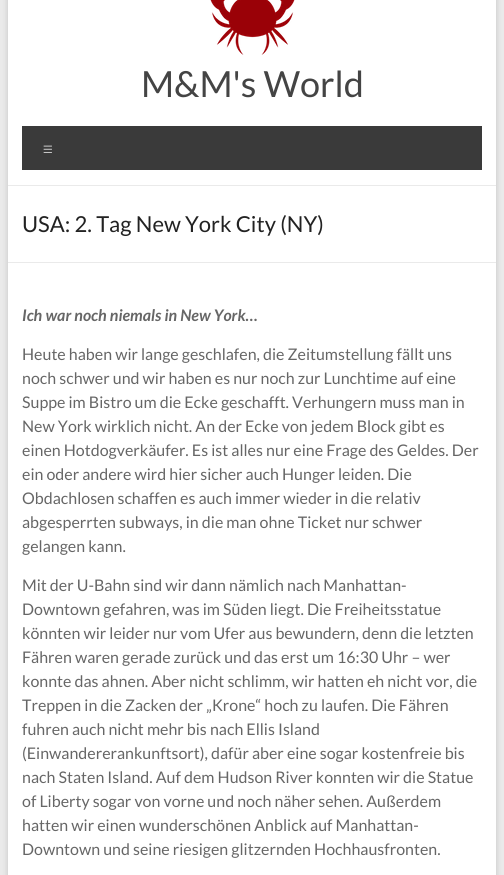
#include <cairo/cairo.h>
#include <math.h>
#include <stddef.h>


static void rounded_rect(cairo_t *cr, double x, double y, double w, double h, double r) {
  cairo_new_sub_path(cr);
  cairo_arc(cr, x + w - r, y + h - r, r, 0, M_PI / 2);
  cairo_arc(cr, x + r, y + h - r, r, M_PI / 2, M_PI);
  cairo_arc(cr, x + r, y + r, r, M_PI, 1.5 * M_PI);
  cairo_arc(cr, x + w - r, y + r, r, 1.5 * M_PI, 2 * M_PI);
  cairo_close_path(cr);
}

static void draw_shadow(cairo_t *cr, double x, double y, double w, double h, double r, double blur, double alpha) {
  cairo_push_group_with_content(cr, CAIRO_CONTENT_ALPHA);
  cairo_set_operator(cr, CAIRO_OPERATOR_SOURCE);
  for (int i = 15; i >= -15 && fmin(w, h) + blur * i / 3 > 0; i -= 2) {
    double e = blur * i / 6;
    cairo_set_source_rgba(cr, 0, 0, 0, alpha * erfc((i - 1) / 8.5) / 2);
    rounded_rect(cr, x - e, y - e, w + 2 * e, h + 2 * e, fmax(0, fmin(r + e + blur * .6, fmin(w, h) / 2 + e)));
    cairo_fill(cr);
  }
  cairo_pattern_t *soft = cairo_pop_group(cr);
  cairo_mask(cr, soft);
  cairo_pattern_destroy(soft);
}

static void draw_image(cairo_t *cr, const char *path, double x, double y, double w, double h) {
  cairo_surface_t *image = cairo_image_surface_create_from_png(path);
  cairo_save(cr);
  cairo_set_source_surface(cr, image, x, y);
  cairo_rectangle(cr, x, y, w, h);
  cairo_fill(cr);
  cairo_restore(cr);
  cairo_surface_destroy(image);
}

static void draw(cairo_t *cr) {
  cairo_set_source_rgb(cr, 234 / 255.0, 234 / 255.0, 234 / 255.0);
  cairo_paint(cr);
  cairo_set_source_rgb(cr, 100 / 255.0, 100 / 255.0, 100 / 255.0);
  draw_shadow(cr, 8, -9, 488, 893, 0, 3, 0.3);
  cairo_set_source_rgb(cr, 1, 1, 1);
  cairo_rectangle(cr, 8, 0, 488, 875);
  cairo_fill(cr);
  cairo_set_source_rgb(cr, 234 / 255.0, 234 / 255.0, 234 / 255.0);
  cairo_rectangle(cr, 8, 185, 488, 1);
  cairo_fill(cr);
  draw_image(cr, "images/1.png", 210, 0, 85, 55);
  cairo_set_source_rgb(cr, 58 / 255.0, 58 / 255.0, 58 / 255.0);
  cairo_rectangle(cr, 22, 126, 460, 44);
  cairo_fill(cr);
  cairo_set_source_rgb(cr, 234 / 255.0, 234 / 255.0, 234 / 255.0);
  cairo_rectangle(cr, 8, 262, 488, 1);
  cairo_fill(cr);
  cairo_select_font_face(cr, "Lato", CAIRO_FONT_SLANT_NORMAL, CAIRO_FONT_WEIGHT_NORMAL);
  cairo_set_font_size(cr, 36);
  cairo_set_source_rgb(cr, 68 / 255.0, 68 / 255.0, 68 / 255.0);
  cairo_move_to(cr, 141, 97);
  cairo_show_text(cr, "M&M's World");
  cairo_select_font_face(cr, "Lato Light", CAIRO_FONT_SLANT_NORMAL, CAIRO_FONT_WEIGHT_NORMAL);
  cairo_set_font_size(cr, 20);
  cairo_set_source_rgb(cr, 1, 1, 1);
  cairo_move_to(cr, 42, 156);
  cairo_show_text(cr, "≡");
  cairo_select_font_face(cr, "Lato", CAIRO_FONT_SLANT_NORMAL, CAIRO_FONT_WEIGHT_NORMAL);
  cairo_set_font_size(cr, 22);
  cairo_set_source_rgb(cr, 34 / 255.0, 34 / 255.0, 34 / 255.0);
  cairo_move_to(cr, 22, 232);
  cairo_show_text(cr, "USA: 2. Tag New York City (NY)");
  cairo_select_font_face(cr, "Lato", CAIRO_FONT_SLANT_ITALIC, CAIRO_FONT_WEIGHT_BOLD);
  cairo_set_font_size(cr, 16);
  cairo_set_source_rgb(cr, 102 / 255.0, 102 / 255.0, 102 / 255.0);
  cairo_move_to(cr, 22, 321);
  cairo_show_text(cr, "Ich war noch niemals in New York…");
  cairo_select_font_face(cr, "Lato", CAIRO_FONT_SLANT_NORMAL, CAIRO_FONT_WEIGHT_NORMAL);
  cairo_move_to(cr, 22, 360);
  cairo_show_text(cr, "Heute haben wir lange geschlafen, die Zeitumstellung fällt uns");
  cairo_move_to(cr, 22, 384);
  cairo_show_text(cr, "noch schwer und wir haben es nur noch zur Lunchtime auf eine");
  cairo_move_to(cr, 22, 408);
  cairo_show_text(cr, "Suppe im Bistro um die Ecke geschafft. Verhungern muss man in");
  cairo_move_to(cr, 22, 432);
  cairo_show_text(cr, "New York wirklich nicht. An der Ecke von jedem Block gibt es");
  cairo_move_to(cr, 22, 456);
  cairo_show_text(cr, "einen Hotdogverkäufer. Es ist alles nur eine Frage des Geldes. Der");
  cairo_move_to(cr, 22, 480);
  cairo_show_text(cr, "ein oder andere wird hier sicher auch Hunger leiden. Die");
  cairo_move_to(cr, 22, 504);
  cairo_show_text(cr, "Obdachlosen schaffen es auch immer wieder in die relativ");
  cairo_move_to(cr, 22, 528);
  cairo_show_text(cr, "abgesperrten subways, in die man ohne Ticket nur schwer");
  cairo_move_to(cr, 22, 552);
  cairo_show_text(cr, "gelangen kann.");
  cairo_move_to(cr, 22, 591);
  cairo_show_text(cr, "Mit der U-Bahn sind wir dann nämlich nach Manhattan-");
  cairo_move_to(cr, 22, 615);
  cairo_show_text(cr, "Downtown gefahren, was im Süden liegt. Die Freiheitsstatue");
  cairo_move_to(cr, 22, 639);
  cairo_show_text(cr, "könnten wir leider nur vom Ufer aus bewundern, denn die letzten");
  cairo_move_to(cr, 22, 663);
  cairo_show_text(cr, "Fähren waren gerade zurück und das erst um 16:30 Uhr – wer");
  cairo_move_to(cr, 22, 687);
  cairo_show_text(cr, "konnte das ahnen. Aber nicht schlimm, wir hatten eh nicht vor, die");
  cairo_move_to(cr, 22, 711);
  cairo_show_text(cr, "Treppen in die Zacken der „Krone“ hoch zu laufen. Die Fähren");
  cairo_move_to(cr, 22, 735);
  cairo_show_text(cr, "fuhren auch nicht mehr bis nach Ellis Island");
  cairo_move_to(cr, 22, 759);
  cairo_show_text(cr, "(Einwandererankunftsort), dafür aber eine sogar kostenfreie bis");
  cairo_move_to(cr, 22, 783);
  cairo_show_text(cr, "nach Staten Island. Auf dem Hudson River konnten wir die Statue");
  cairo_move_to(cr, 22, 807);
  cairo_show_text(cr, "of Liberty sogar von vorne und noch näher sehen. Außerdem");
  cairo_move_to(cr, 22, 831);
  cairo_show_text(cr, "hatten wir einen wunderschönen Anblick auf Manhattan-");
  cairo_move_to(cr, 22, 855);
  cairo_show_text(cr, "Downtown und seine riesigen glitzernden Hochhausfronten.");
}

int main(void) {
  cairo_surface_t *surface = cairo_image_surface_create(CAIRO_FORMAT_RGB24, 504, 875);
  cairo_t *cr = cairo_create(surface);
  cairo_font_options_t *options = cairo_font_options_create();
  cairo_font_options_set_hint_metrics(options, CAIRO_HINT_METRICS_OFF);
  cairo_font_options_set_hint_style(options, CAIRO_HINT_STYLE_NONE);
  cairo_set_font_options(cr, options);
  cairo_set_miter_limit(cr, 4);
  draw(cr);
  cairo_surface_write_to_png(surface, "out.png");
  cairo_font_options_destroy(options);
  cairo_destroy(cr);
  cairo_surface_destroy(surface);
  return 0;
}
